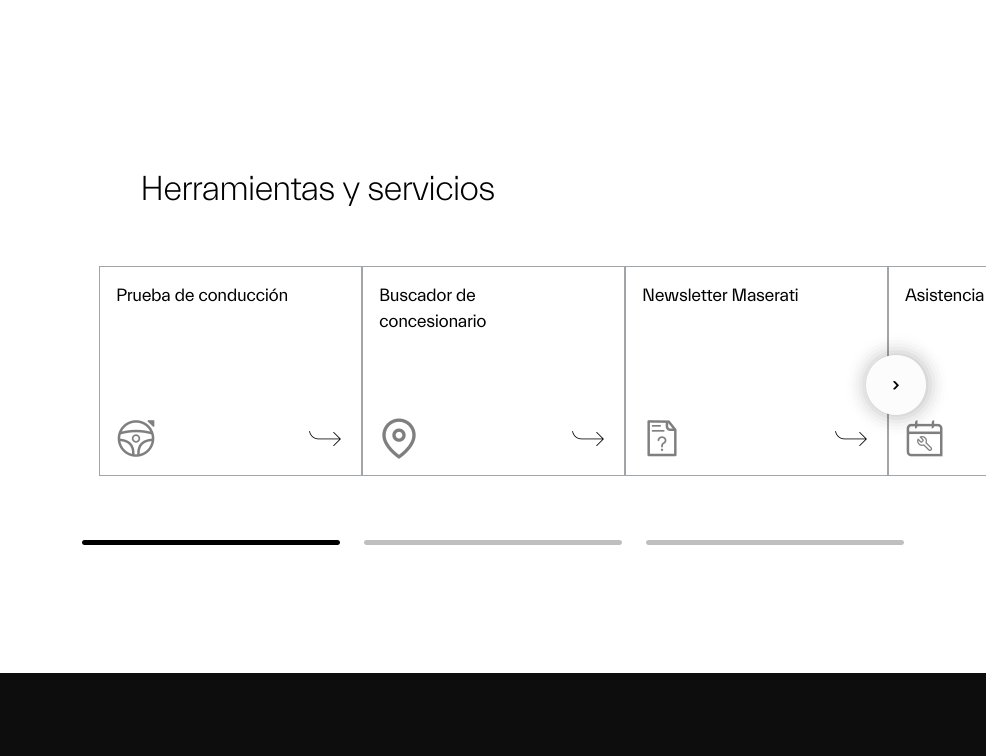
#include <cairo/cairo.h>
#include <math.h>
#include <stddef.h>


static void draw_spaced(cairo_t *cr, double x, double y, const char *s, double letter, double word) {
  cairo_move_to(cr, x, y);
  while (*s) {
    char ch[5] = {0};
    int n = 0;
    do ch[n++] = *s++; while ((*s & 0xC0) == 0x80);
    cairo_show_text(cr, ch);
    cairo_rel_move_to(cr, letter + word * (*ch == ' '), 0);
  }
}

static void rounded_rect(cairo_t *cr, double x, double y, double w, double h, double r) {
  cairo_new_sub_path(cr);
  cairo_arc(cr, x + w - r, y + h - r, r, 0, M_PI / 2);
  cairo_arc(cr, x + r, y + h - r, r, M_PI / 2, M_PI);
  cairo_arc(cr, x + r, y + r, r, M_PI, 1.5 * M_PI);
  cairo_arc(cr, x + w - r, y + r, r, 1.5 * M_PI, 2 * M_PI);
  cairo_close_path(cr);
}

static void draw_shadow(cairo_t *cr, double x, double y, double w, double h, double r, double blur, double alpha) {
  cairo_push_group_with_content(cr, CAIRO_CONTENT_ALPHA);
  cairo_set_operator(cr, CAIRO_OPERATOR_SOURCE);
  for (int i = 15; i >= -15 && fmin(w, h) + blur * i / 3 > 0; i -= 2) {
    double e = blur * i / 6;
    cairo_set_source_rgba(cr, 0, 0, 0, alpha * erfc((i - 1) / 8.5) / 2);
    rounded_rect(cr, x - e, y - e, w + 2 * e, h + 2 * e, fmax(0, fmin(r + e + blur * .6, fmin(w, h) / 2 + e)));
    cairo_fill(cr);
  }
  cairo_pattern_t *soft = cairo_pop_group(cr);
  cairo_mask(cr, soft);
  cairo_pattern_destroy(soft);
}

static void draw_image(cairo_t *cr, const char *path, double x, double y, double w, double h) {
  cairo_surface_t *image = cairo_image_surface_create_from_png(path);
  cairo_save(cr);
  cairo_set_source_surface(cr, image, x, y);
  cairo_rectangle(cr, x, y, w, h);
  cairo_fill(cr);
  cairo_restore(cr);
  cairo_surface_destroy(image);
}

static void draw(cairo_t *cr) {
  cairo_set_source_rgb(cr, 1, 1, 1);
  cairo_paint(cr);
  cairo_rectangle(cr, 99.5, 266.5, 262, 209);
  cairo_set_source_rgb(cr, 161 / 255.0, 165 / 255.0, 168 / 255.0);
  cairo_set_line_width(cr, 1);
  cairo_stroke(cr);
  draw_image(cr, "images/1.png", 117, 420, 38, 37);
  draw_image(cr, "images/2.png", 309, 431, 32, 15);
  cairo_rectangle(cr, 362.5, 266.5, 262, 209);
  cairo_stroke(cr);
  draw_image(cr, "images/3.png", 382, 418, 34, 41);
  draw_image(cr, "images/2.png", 572, 431, 32, 15);
  cairo_rectangle(cr, 625.5, 266.5, 262, 209);
  cairo_stroke(cr);
  draw_image(cr, "images/4.png", 647, 420, 30, 37);
  draw_image(cr, "images/2.png", 835, 431, 32, 15);
  cairo_rectangle(cr, 888.5, 266.5, 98, 209);
  cairo_stroke(cr);
  draw_image(cr, "images/5.png", 906, 420, 37, 37);
  cairo_set_source_rgb(cr, 0, 0, 0);
  draw_shadow(cr, 867, 355, 60, 60, 30, 10, 0.3);
  cairo_set_source_rgb(cr, 252 / 255.0, 252 / 255.0, 252 / 255.0);
  cairo_new_path(cr);
  cairo_move_to(cr, 896, 415);
  cairo_curve_to(cr, 879, 415, 866, 401, 866, 385);
  cairo_curve_to(cr, 866, 368, 879, 355, 896, 355);
  cairo_curve_to(cr, 913, 355, 926, 368, 926, 385);
  cairo_curve_to(cr, 926, 401, 913, 415, 896, 415);
  cairo_close_path(cr);
  cairo_fill(cr);
  draw_image(cr, "images/6.png", 893, 381, 6, 9);
  cairo_set_source_rgb(cr, 0, 0, 0);
  rounded_rect(cr, 82, 540, 258, 5, 2.5);
  cairo_fill(cr);
  cairo_set_source_rgb(cr, 191 / 255.0, 191 / 255.0, 191 / 255.0);
  rounded_rect(cr, 364, 540, 258, 5, 2.5);
  cairo_fill(cr);
  rounded_rect(cr, 646, 540, 258, 5, 2.5);
  cairo_fill(cr);
  cairo_set_source_rgb(cr, 13 / 255.0, 13 / 255.0, 13 / 255.0);
  cairo_rectangle(cr, 0, 673, 986, 83);
  cairo_fill(cr);
  cairo_select_font_face(cr, "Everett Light", CAIRO_FONT_SLANT_NORMAL, CAIRO_FONT_WEIGHT_NORMAL);
  cairo_set_font_size(cr, 35);
  cairo_set_source_rgb(cr, 0, 0, 0);
  draw_spaced(cr, 140, 200, "Herramientas y servicios", -1, 0);
  cairo_select_font_face(cr, "Everett", CAIRO_FONT_SLANT_NORMAL, CAIRO_FONT_WEIGHT_NORMAL);
  cairo_set_font_size(cr, 18);
  draw_spaced(cr, 116, 301, "Prueba de conducción", -0.4, 0);
  draw_spaced(cr, 379, 301, "Buscador de", -0.4, 0);
  draw_spaced(cr, 379, 327, "concesionario", -0.4, 0);
  draw_spaced(cr, 642, 301, "Newsletter Maserati", -0.4, 0);
  draw_spaced(cr, 905, 301, "Asistencia", -0.4, 0);
}

int main(void) {
  cairo_surface_t *surface = cairo_image_surface_create(CAIRO_FORMAT_RGB24, 986, 756);
  cairo_t *cr = cairo_create(surface);
  cairo_font_options_t *options = cairo_font_options_create();
  cairo_font_options_set_hint_metrics(options, CAIRO_HINT_METRICS_OFF);
  cairo_font_options_set_hint_style(options, CAIRO_HINT_STYLE_NONE);
  cairo_set_font_options(cr, options);
  cairo_set_miter_limit(cr, 4);
  draw(cr);
  cairo_surface_write_to_png(surface, "out.png");
  cairo_font_options_destroy(options);
  cairo_destroy(cr);
  cairo_surface_destroy(surface);
  return 0;
}
